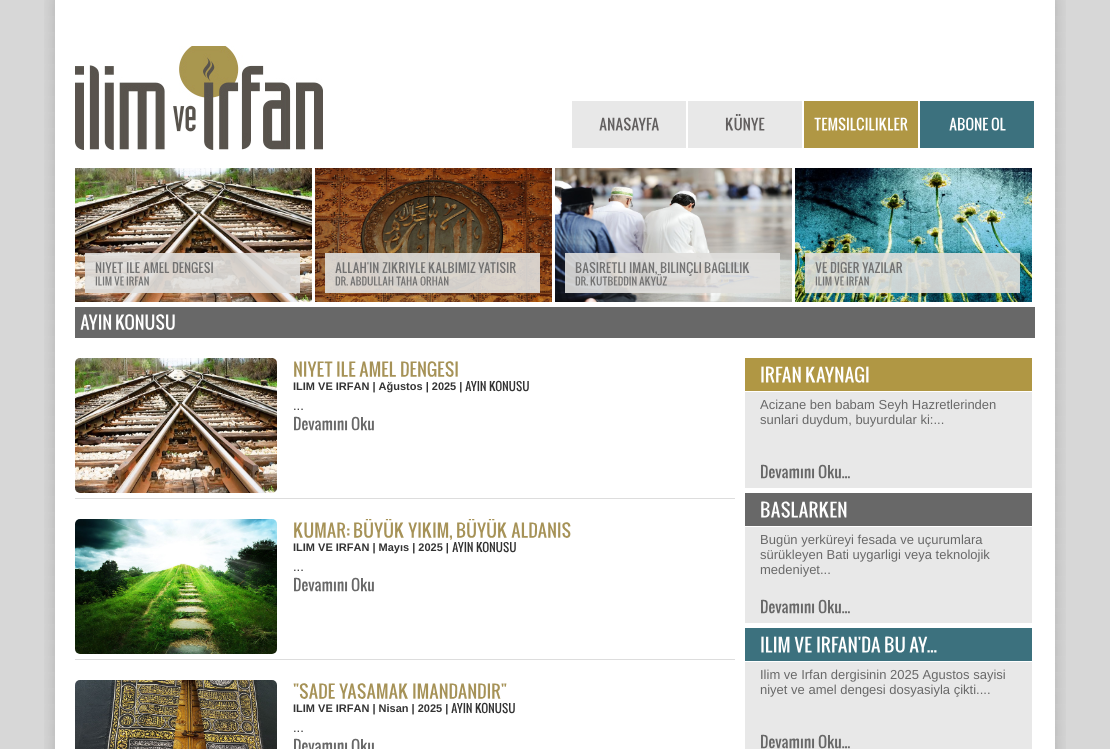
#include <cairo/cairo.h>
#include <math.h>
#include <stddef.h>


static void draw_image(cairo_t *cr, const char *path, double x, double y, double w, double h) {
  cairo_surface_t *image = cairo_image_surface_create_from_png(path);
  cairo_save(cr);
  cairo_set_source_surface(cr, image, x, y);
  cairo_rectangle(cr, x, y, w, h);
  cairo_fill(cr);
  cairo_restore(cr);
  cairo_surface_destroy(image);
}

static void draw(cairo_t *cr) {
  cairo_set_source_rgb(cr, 215 / 255.0, 215 / 255.0, 215 / 255.0);
  cairo_paint(cr);
  draw_image(cr, "images/1.png", 44, 0, 1022, 749);
  draw_image(cr, "images/2.png", 75, 46, 248, 104);
  cairo_set_source_rgb(cr, 232 / 255.0, 232 / 255.0, 232 / 255.0);
  cairo_rectangle(cr, 572, 101, 114, 47);
  cairo_fill(cr);
  draw_image(cr, "images/3.png", 599, 117, 60, 14);
  cairo_rectangle(cr, 688, 101, 114, 47);
  cairo_fill(cr);
  draw_image(cr, "images/4.png", 725, 114, 40, 17);
  cairo_set_source_rgb(cr, 176 / 255.0, 151 / 255.0, 68 / 255.0);
  cairo_rectangle(cr, 804, 101, 114, 47);
  cairo_fill(cr);
  draw_image(cr, "images/5.png", 814, 117, 94, 14);
  cairo_set_source_rgb(cr, 60 / 255.0, 113 / 255.0, 126 / 255.0);
  cairo_rectangle(cr, 920, 101, 114, 47);
  cairo_fill(cr);
  draw_image(cr, "images/6.png", 949, 117, 40, 14);
  draw_image(cr, "images/7.png", 991, 117, 15, 14);
  draw_image(cr, "images/8.png", 75, 168, 237, 134);
  cairo_set_source_rgba(cr, 224 / 255.0, 223 / 255.0, 221 / 255.0, 0.9);
  cairo_rectangle(cr, 85, 253, 215, 40);
  cairo_fill(cr);
  draw_image(cr, "images/9.png", 95, 262, 28, 11);
  draw_image(cr, "images/10.png", 126, 262, 14, 11);
  draw_image(cr, "images/11.png", 143, 262, 27, 11);
  draw_image(cr, "images/12.png", 172, 262, 41, 11);
  draw_image(cr, "images/13.png", 95, 276, 17, 10);
  draw_image(cr, "images/14.png", 114, 276, 10, 10);
  draw_image(cr, "images/15.png", 126, 276, 23, 10);
  draw_image(cr, "images/16.png", 315, 168, 237, 134);
  cairo_rectangle(cr, 325, 253, 215, 40);
  cairo_fill(cr);
  draw_image(cr, "images/17.png", 335, 262, 44, 11);
  draw_image(cr, "images/18.png", 382, 262, 44, 11);
  draw_image(cr, "images/19.png", 428, 262, 48, 11);
  draw_image(cr, "images/20.png", 478, 262, 38, 11);
  draw_image(cr, "images/21.png", 335, 276, 13, 10);
  draw_image(cr, "images/22.png", 350, 276, 44, 10);
  draw_image(cr, "images/23.png", 396, 276, 22, 10);
  draw_image(cr, "images/24.png", 420, 276, 29, 10);
  draw_image(cr, "images/25.png", 555, 168, 237, 134);
  cairo_rectangle(cr, 565, 253, 215, 40);
  cairo_fill(cr);
  draw_image(cr, "images/26.png", 575, 262, 51, 11);
  draw_image(cr, "images/27.png", 629, 262, 28, 13);
  draw_image(cr, "images/28.png", 660, 262, 41, 14);
  draw_image(cr, "images/29.png", 704, 262, 46, 11);
  draw_image(cr, "images/30.png", 575, 276, 13, 10);
  draw_image(cr, "images/31.png", 590, 276, 47, 10);
  draw_image(cr, "images/32.png", 639, 274, 28, 12);
  draw_image(cr, "images/33.png", 795, 168, 237, 134);
  cairo_rectangle(cr, 805, 253, 215, 40);
  cairo_fill(cr);
  draw_image(cr, "images/34.png", 815, 262, 12, 11);
  draw_image(cr, "images/35.png", 830, 262, 30, 11);
  draw_image(cr, "images/36.png", 862, 262, 41, 11);
  draw_image(cr, "images/37.png", 815, 276, 17, 10);
  draw_image(cr, "images/38.png", 834, 276, 10, 10);
  draw_image(cr, "images/39.png", 846, 276, 23, 10);
  cairo_set_source_rgb(cr, 104 / 255.0, 104 / 255.0, 104 / 255.0);
  cairo_rectangle(cr, 75, 307, 960, 31);
  cairo_fill(cr);
  draw_image(cr, "images/40.png", 80, 314, 32, 16);
  draw_image(cr, "images/41.png", 116, 314, 59, 16);
  cairo_set_source_rgb(cr, 221 / 255.0, 221 / 255.0, 221 / 255.0);
  cairo_rectangle(cr, 75, 498, 660, 1);
  cairo_fill(cr);
  draw_image(cr, "images/42.png", 75, 358, 202, 135);
  draw_image(cr, "images/43.png", 294, 361, 39, 16);
  draw_image(cr, "images/44.png", 337, 361, 19, 16);
  draw_image(cr, "images/45.png", 359, 361, 37, 16);
  draw_image(cr, "images/46.png", 401, 361, 57, 16);
  draw_image(cr, "images/47.png", 465, 380, 21, 12);
  draw_image(cr, "images/48.png", 489, 380, 40, 12);
  draw_image(cr, "images/49.png", 294, 416, 54, 15);
  draw_image(cr, "images/50.png", 351, 416, 23, 15);
  cairo_rectangle(cr, 75, 659, 660, 1);
  cairo_fill(cr);
  draw_image(cr, "images/51.png", 75, 519, 202, 135);
  draw_image(cr, "images/52.png", 294, 522, 56, 16);
  draw_image(cr, "images/53.png", 354, 519, 50, 19);
  draw_image(cr, "images/54.png", 408, 522, 44, 18);
  draw_image(cr, "images/53.png", 457, 519, 50, 19);
  draw_image(cr, "images/55.png", 511, 522, 60, 16);
  draw_image(cr, "images/47.png", 452, 541, 21, 12);
  draw_image(cr, "images/48.png", 476, 541, 40, 12);
  draw_image(cr, "images/49.png", 294, 577, 54, 15);
  draw_image(cr, "images/50.png", 351, 577, 23, 15);
  draw_image(cr, "images/56.png", 75, 680, 202, 69);
  draw_image(cr, "images/57.png", 293, 683, 42, 16);
  draw_image(cr, "images/58.png", 339, 683, 69, 16);
  draw_image(cr, "images/59.png", 413, 683, 94, 16);
  draw_image(cr, "images/47.png", 451, 702, 21, 12);
  draw_image(cr, "images/48.png", 475, 702, 40, 12);
  draw_image(cr, "images/60.png", 294, 738, 54, 11);
  draw_image(cr, "images/61.png", 351, 738, 23, 11);
  cairo_set_source_rgb(cr, 232 / 255.0, 232 / 255.0, 232 / 255.0);
  cairo_rectangle(cr, 745, 392, 287, 96);
  cairo_fill(cr);
  cairo_set_source_rgb(cr, 176 / 255.0, 151 / 255.0, 68 / 255.0);
  cairo_rectangle(cr, 745, 358, 287, 33);
  cairo_fill(cr);
  draw_image(cr, "images/62.png", 761, 366, 40, 17);
  draw_image(cr, "images/63.png", 806, 366, 63, 17);
  draw_image(cr, "images/64.png", 761, 464, 54, 15);
  draw_image(cr, "images/65.png", 818, 464, 32, 15);
  cairo_set_source_rgb(cr, 232 / 255.0, 232 / 255.0, 232 / 255.0);
  cairo_rectangle(cr, 745, 527, 287, 96);
  cairo_fill(cr);
  cairo_set_source_rgb(cr, 104 / 255.0, 104 / 255.0, 104 / 255.0);
  cairo_rectangle(cr, 745, 493, 287, 33);
  cairo_fill(cr);
  draw_image(cr, "images/66.png", 761, 501, 86, 17);
  draw_image(cr, "images/64.png", 761, 599, 54, 15);
  draw_image(cr, "images/65.png", 818, 599, 32, 15);
  cairo_set_source_rgb(cr, 232 / 255.0, 232 / 255.0, 232 / 255.0);
  cairo_rectangle(cr, 745, 662, 287, 87);
  cairo_fill(cr);
  cairo_set_source_rgb(cr, 60 / 255.0, 113 / 255.0, 126 / 255.0);
  cairo_rectangle(cr, 745, 628, 287, 33);
  cairo_fill(cr);
  draw_image(cr, "images/67.png", 761, 636, 29, 17);
  draw_image(cr, "images/68.png", 794, 636, 18, 17);
  draw_image(cr, "images/69.png", 817, 636, 64, 17);
  draw_image(cr, "images/70.png", 885, 636, 20, 17);
  draw_image(cr, "images/71.png", 909, 636, 28, 17);
  draw_image(cr, "images/64.png", 761, 734, 54, 15);
  draw_image(cr, "images/65.png", 818, 734, 32, 15);
  cairo_select_font_face(cr, "Liberation Sans", CAIRO_FONT_SLANT_NORMAL, CAIRO_FONT_WEIGHT_BOLD);
  cairo_set_font_size(cr, 11);
  cairo_set_source_rgb(cr, 51 / 255.0, 51 / 255.0, 51 / 255.0);
  cairo_move_to(cr, 293, 390);
  cairo_show_text(cr, "ILIM VE IRFAN | Ağustos | 2025 |");
  cairo_select_font_face(cr, "Liberation Sans", CAIRO_FONT_SLANT_NORMAL, CAIRO_FONT_WEIGHT_NORMAL);
  cairo_set_font_size(cr, 13);
  cairo_move_to(cr, 293, 410);
  cairo_show_text(cr, "...");
  cairo_select_font_face(cr, "Liberation Sans", CAIRO_FONT_SLANT_NORMAL, CAIRO_FONT_WEIGHT_BOLD);
  cairo_set_font_size(cr, 11);
  cairo_move_to(cr, 293, 551);
  cairo_show_text(cr, "ILIM VE IRFAN | Mayıs | 2025 |");
  cairo_select_font_face(cr, "Liberation Sans", CAIRO_FONT_SLANT_NORMAL, CAIRO_FONT_WEIGHT_NORMAL);
  cairo_set_font_size(cr, 13);
  cairo_move_to(cr, 293, 571);
  cairo_show_text(cr, "...");
  cairo_select_font_face(cr, "Liberation Sans", CAIRO_FONT_SLANT_NORMAL, CAIRO_FONT_WEIGHT_BOLD);
  cairo_set_font_size(cr, 11);
  cairo_move_to(cr, 293, 712);
  cairo_show_text(cr, "ILIM VE IRFAN | Nisan | 2025 |");
  cairo_select_font_face(cr, "Liberation Sans", CAIRO_FONT_SLANT_NORMAL, CAIRO_FONT_WEIGHT_NORMAL);
  cairo_set_font_size(cr, 13);
  cairo_move_to(cr, 293, 732);
  cairo_show_text(cr, "...");
  cairo_set_source_rgb(cr, 104 / 255.0, 104 / 255.0, 104 / 255.0);
  cairo_move_to(cr, 760, 409);
  cairo_show_text(cr, "Acizane ben babam Seyh Hazretlerinden");
  cairo_move_to(cr, 760, 424);
  cairo_show_text(cr, "sunlari duydum, buyurdular ki:...");
  cairo_move_to(cr, 760, 544);
  cairo_show_text(cr, "Bugün yerküreyi fesada ve uçurumlara");
  cairo_move_to(cr, 760, 559);
  cairo_show_text(cr, "sürükleyen Bati uygarligi veya teknolojik");
  cairo_move_to(cr, 760, 574);
  cairo_show_text(cr, "medeniyet...");
  cairo_move_to(cr, 760, 679);
  cairo_show_text(cr, "Ilim ve Irfan dergisinin 2025 Agustos sayisi");
  cairo_move_to(cr, 760, 694);
  cairo_show_text(cr, "niyet ve amel dengesi dosyasiyla çikti....");
}

int main(void) {
  cairo_surface_t *surface = cairo_image_surface_create(CAIRO_FORMAT_RGB24, 1110, 749);
  cairo_t *cr = cairo_create(surface);
  cairo_font_options_t *options = cairo_font_options_create();
  cairo_font_options_set_hint_metrics(options, CAIRO_HINT_METRICS_OFF);
  cairo_font_options_set_hint_style(options, CAIRO_HINT_STYLE_NONE);
  cairo_set_font_options(cr, options);
  cairo_set_miter_limit(cr, 4);
  draw(cr);
  cairo_surface_write_to_png(surface, "out.png");
  cairo_font_options_destroy(options);
  cairo_destroy(cr);
  cairo_surface_destroy(surface);
  return 0;
}
